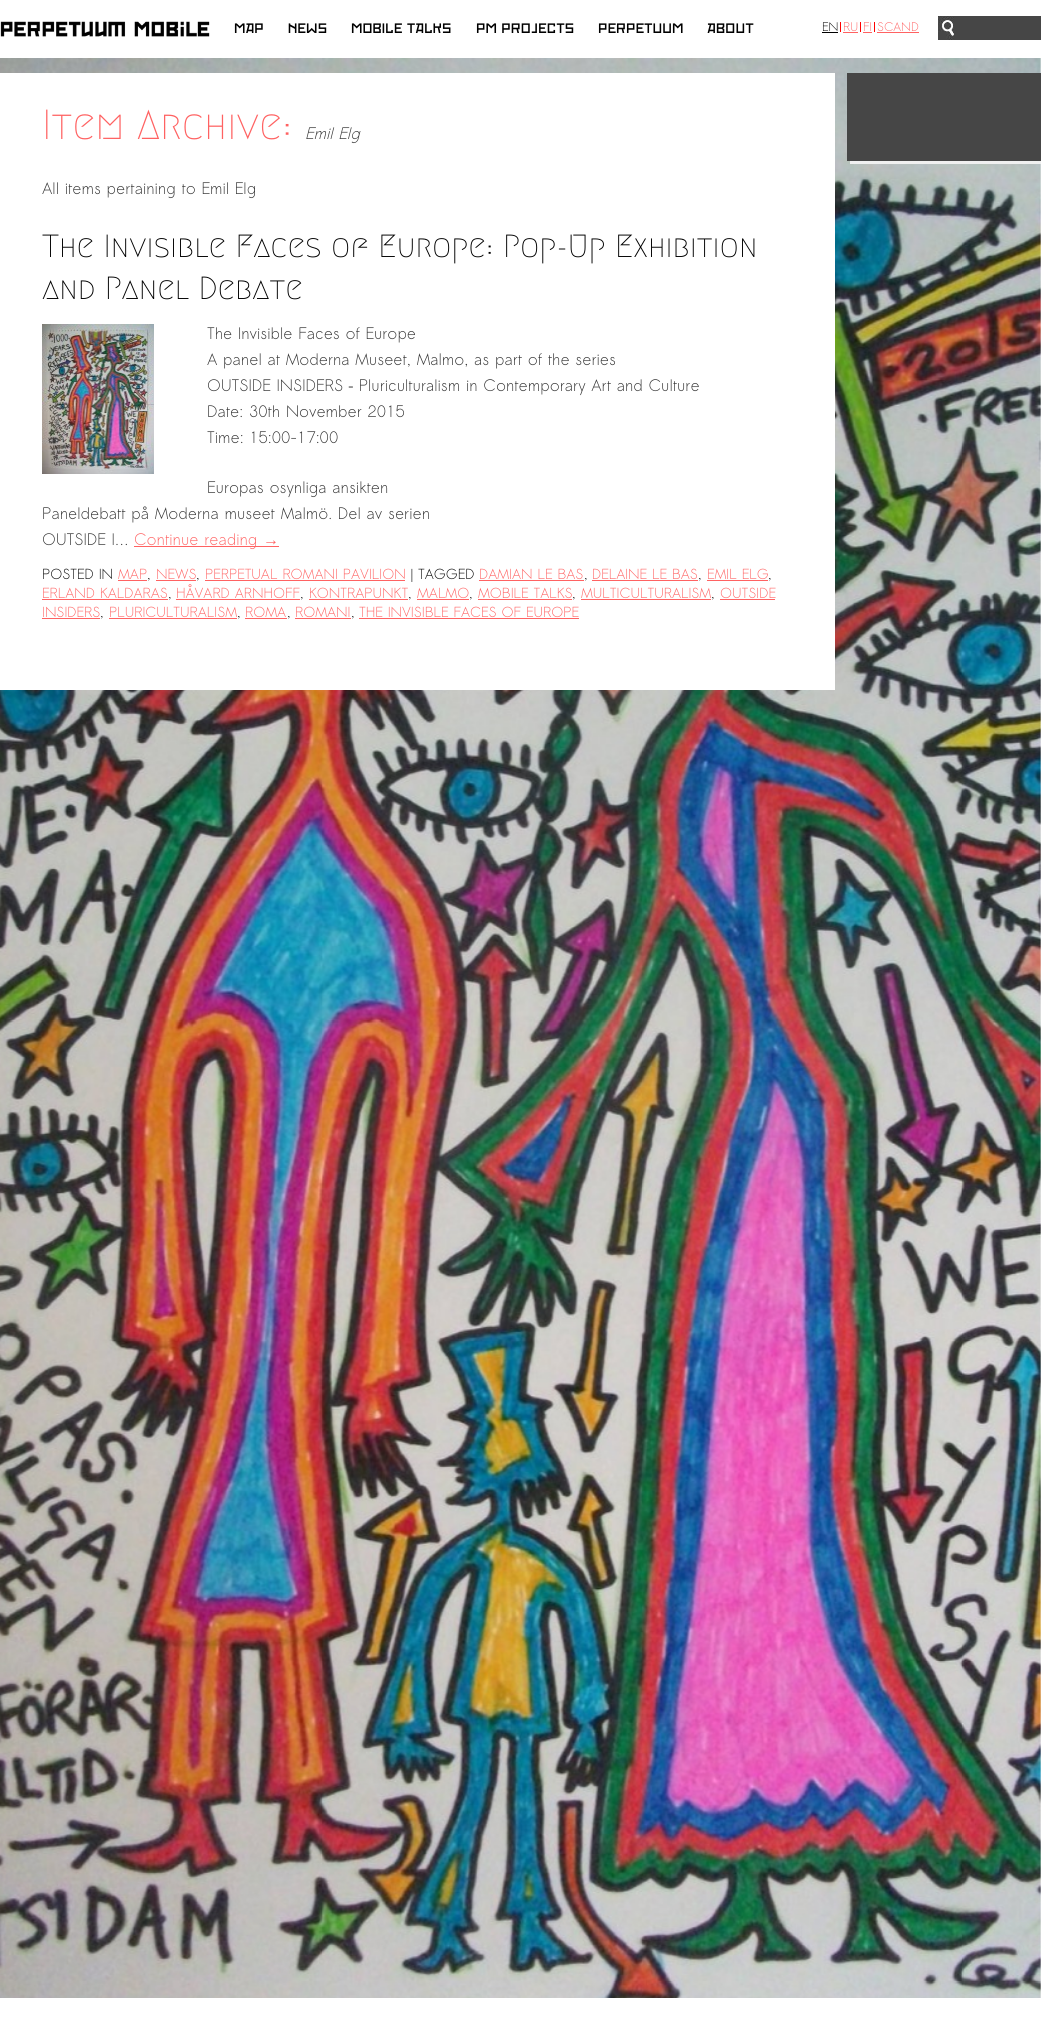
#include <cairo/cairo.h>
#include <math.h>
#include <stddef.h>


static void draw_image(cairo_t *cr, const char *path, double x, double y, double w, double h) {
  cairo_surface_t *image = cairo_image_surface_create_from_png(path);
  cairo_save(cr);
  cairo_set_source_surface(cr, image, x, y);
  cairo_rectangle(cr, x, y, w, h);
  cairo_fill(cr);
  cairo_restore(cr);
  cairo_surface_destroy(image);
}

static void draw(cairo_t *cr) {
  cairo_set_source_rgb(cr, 1, 1, 1);
  cairo_paint(cr);
  draw_image(cr, "images/1.png", 0, 21, 210, 16);
  cairo_set_source_rgb(cr, 0, 0, 0);
  cairo_rectangle(cr, 822, 32, 16, 1);
  cairo_fill(cr);
  cairo_set_source_rgb(cr, 1, 0, 0);
  cairo_rectangle(cr, 840, 22, 1, 10);
  cairo_fill(cr);
  cairo_set_source_rgb(cr, 1, 98 / 255.0, 98 / 255.0);
  cairo_rectangle(cr, 843, 32, 15, 1);
  cairo_fill(cr);
  cairo_set_source_rgb(cr, 1, 0, 0);
  cairo_rectangle(cr, 860, 22, 1, 10);
  cairo_fill(cr);
  cairo_set_source_rgb(cr, 1, 98 / 255.0, 98 / 255.0);
  cairo_rectangle(cr, 863, 32, 9, 1);
  cairo_fill(cr);
  cairo_set_source_rgb(cr, 1, 0, 0);
  cairo_rectangle(cr, 874, 22, 1, 10);
  cairo_fill(cr);
  cairo_set_source_rgb(cr, 1, 98 / 255.0, 98 / 255.0);
  cairo_rectangle(cr, 877, 32, 42, 1);
  cairo_fill(cr);
  cairo_set_source_rgb(cr, 70 / 255.0, 70 / 255.0, 70 / 255.0);
  cairo_rectangle(cr, 954, 16, 87, 24);
  cairo_fill(cr);
  draw_image(cr, "images/2.png", 938, 16, 16, 24);
  draw_image(cr, "images/3.png", 0, 58, 1041, 1940);
  cairo_set_source_rgb(cr, 1, 1, 1);
  cairo_rectangle(cr, 0, 73, 835, 617);
  cairo_fill(cr);
  draw_image(cr, "images/4.png", 42, 324, 112, 150);
  cairo_set_source_rgb(cr, 1, 98 / 255.0, 98 / 255.0);
  cairo_rectangle(cr, 134, 546, 145, 1);
  cairo_fill(cr);
  cairo_rectangle(cr, 118, 580, 29, 1);
  cairo_fill(cr);
  cairo_rectangle(cr, 156, 580, 40, 1);
  cairo_fill(cr);
  cairo_rectangle(cr, 205, 580, 200, 1);
  cairo_fill(cr);
  cairo_rectangle(cr, 479, 580, 105, 1);
  cairo_fill(cr);
  cairo_rectangle(cr, 592, 580, 106, 1);
  cairo_fill(cr);
  cairo_rectangle(cr, 707, 580, 61, 1);
  cairo_fill(cr);
  cairo_rectangle(cr, 42, 599, 126, 1);
  cairo_fill(cr);
  cairo_rectangle(cr, 176, 599, 124, 1);
  cairo_fill(cr);
  cairo_rectangle(cr, 309, 599, 99, 1);
  cairo_fill(cr);
  cairo_rectangle(cr, 417, 599, 52, 1);
  cairo_fill(cr);
  cairo_rectangle(cr, 478, 599, 94, 1);
  cairo_fill(cr);
  cairo_rectangle(cr, 581, 599, 130, 1);
  cairo_fill(cr);
  cairo_rectangle(cr, 720, 599, 55, 1);
  cairo_fill(cr);
  cairo_rectangle(cr, 42, 618, 58, 1);
  cairo_fill(cr);
  cairo_rectangle(cr, 109, 618, 128, 1);
  cairo_fill(cr);
  cairo_rectangle(cr, 245, 618, 42, 1);
  cairo_fill(cr);
  cairo_rectangle(cr, 295, 618, 56, 1);
  cairo_fill(cr);
  cairo_rectangle(cr, 359, 618, 220, 1);
  cairo_fill(cr);
  cairo_set_source_rgb(cr, 240 / 255.0, 240 / 255.0, 240 / 255.0);
  cairo_new_path(cr);
  cairo_move_to(cr, 850, 161);
  cairo_line_to(cr, 850, 164);
  cairo_line_to(cr, 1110, 164);
  cairo_line_to(cr, 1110, 76);
  cairo_line_to(cr, 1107, 76);
  cairo_line_to(cr, 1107, 161);
  cairo_close_path(cr);
  cairo_fill(cr);
  cairo_set_source_rgb(cr, 70 / 255.0, 70 / 255.0, 70 / 255.0);
  cairo_rectangle(cr, 847, 73, 194, 88);
  cairo_fill(cr);
  cairo_select_font_face(cr, "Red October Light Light", CAIRO_FONT_SLANT_NORMAL, CAIRO_FONT_WEIGHT_NORMAL);
  cairo_set_font_size(cr, 12);
  cairo_set_source_rgb(cr, 0, 0, 0);
  cairo_move_to(cr, 234, 33);
  cairo_show_text(cr, "MAP");
  cairo_move_to(cr, 288, 33);
  cairo_show_text(cr, "NEWS");
  cairo_move_to(cr, 351, 33);
  cairo_show_text(cr, "MOBILE TALKS");
  cairo_move_to(cr, 476, 33);
  cairo_show_text(cr, "PM PROJECTS");
  cairo_move_to(cr, 598, 33);
  cairo_show_text(cr, "PERPETUUM");
  cairo_move_to(cr, 707, 33);
  cairo_show_text(cr, "ABOUT");
  cairo_select_font_face(cr, "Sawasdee", CAIRO_FONT_SLANT_NORMAL, CAIRO_FONT_WEIGHT_NORMAL);
  cairo_move_to(cr, 822, 31);
  cairo_show_text(cr, "EN");
  cairo_set_source_rgb(cr, 1, 98 / 255.0, 98 / 255.0);
  cairo_move_to(cr, 843, 31);
  cairo_show_text(cr, "RU");
  cairo_move_to(cr, 863, 31);
  cairo_show_text(cr, "FI");
  cairo_move_to(cr, 877, 31);
  cairo_show_text(cr, "SCAND");
  cairo_select_font_face(cr, "Megrim Medium", CAIRO_FONT_SLANT_NORMAL, CAIRO_FONT_WEIGHT_NORMAL);
  cairo_set_font_size(cr, 42);
  cairo_move_to(cr, 42, 139);
  cairo_show_text(cr, "Item Archive:");
  cairo_select_font_face(cr, "Sawasdee", CAIRO_FONT_SLANT_ITALIC, CAIRO_FONT_WEIGHT_NORMAL);
  cairo_set_font_size(cr, 16);
  cairo_set_source_rgb(cr, 51 / 255.0, 51 / 255.0, 51 / 255.0);
  cairo_move_to(cr, 305, 139);
  cairo_show_text(cr, "Emil Elg");
  cairo_select_font_face(cr, "Sawasdee", CAIRO_FONT_SLANT_NORMAL, CAIRO_FONT_WEIGHT_NORMAL);
  cairo_move_to(cr, 42, 194);
  cairo_show_text(cr, "All items pertaining to Emil Elg");
  cairo_select_font_face(cr, "Megrim Medium", CAIRO_FONT_SLANT_NORMAL, CAIRO_FONT_WEIGHT_NORMAL);
  cairo_set_font_size(cr, 32);
  cairo_set_source_rgb(cr, 0, 0, 0);
  cairo_move_to(cr, 42, 257);
  cairo_show_text(cr, "The Invisible Faces of Europe: Pop-Up Exhibition");
  cairo_move_to(cr, 42, 299);
  cairo_show_text(cr, "and Panel Debate");
  cairo_select_font_face(cr, "Sawasdee", CAIRO_FONT_SLANT_NORMAL, CAIRO_FONT_WEIGHT_NORMAL);
  cairo_set_font_size(cr, 16);
  cairo_set_source_rgb(cr, 51 / 255.0, 51 / 255.0, 51 / 255.0);
  cairo_move_to(cr, 207, 339);
  cairo_show_text(cr, "The Invisible Faces of Europe");
  cairo_move_to(cr, 207, 365);
  cairo_show_text(cr, "A panel at Moderna Museet, Malmo, as part of the series");
  cairo_move_to(cr, 207, 391);
  cairo_show_text(cr, "OUTSIDE INSIDERS – Pluriculturalism in Contemporary Art and Culture");
  cairo_move_to(cr, 207, 417);
  cairo_show_text(cr, "Date: 30th November 2015");
  cairo_move_to(cr, 207, 443);
  cairo_show_text(cr, "Time: 15:00-17:00");
  cairo_move_to(cr, 207, 493);
  cairo_show_text(cr, "Europas osynliga ansikten");
  cairo_move_to(cr, 42, 519);
  cairo_show_text(cr, "Paneldebatt på Moderna museet Malmö. Del av serien");
  cairo_move_to(cr, 42, 545);
  cairo_show_text(cr, "OUTSIDE I…");
  cairo_set_source_rgb(cr, 1, 98 / 255.0, 98 / 255.0);
  cairo_move_to(cr, 134, 545);
  cairo_show_text(cr, "Continue reading");
  cairo_select_font_face(cr, "Liberation Serif", CAIRO_FONT_SLANT_NORMAL, CAIRO_FONT_WEIGHT_NORMAL);
  cairo_move_to(cr, 263, 545);
  cairo_show_text(cr, "→");
  cairo_select_font_face(cr, "Sawasdee", CAIRO_FONT_SLANT_NORMAL, CAIRO_FONT_WEIGHT_NORMAL);
  cairo_set_font_size(cr, 14);
  cairo_set_source_rgb(cr, 0, 0, 0);
  cairo_move_to(cr, 42, 579);
  cairo_show_text(cr, "POSTED IN");
  cairo_set_source_rgb(cr, 1, 98 / 255.0, 98 / 255.0);
  cairo_move_to(cr, 118, 579);
  cairo_show_text(cr, "MAP");
  cairo_set_source_rgb(cr, 0, 0, 0);
  cairo_move_to(cr, 147, 579);
  cairo_show_text(cr, ",");
  cairo_set_source_rgb(cr, 1, 98 / 255.0, 98 / 255.0);
  cairo_move_to(cr, 156, 579);
  cairo_show_text(cr, "NEWS");
  cairo_set_source_rgb(cr, 0, 0, 0);
  cairo_move_to(cr, 196, 579);
  cairo_show_text(cr, ",");
  cairo_set_source_rgb(cr, 1, 98 / 255.0, 98 / 255.0);
  cairo_move_to(cr, 205, 579);
  cairo_show_text(cr, "PERPETUAL ROMANI PAVILION");
  cairo_select_font_face(cr, "Liberation Sans", CAIRO_FONT_SLANT_NORMAL, CAIRO_FONT_WEIGHT_NORMAL);
  cairo_set_source_rgb(cr, 119 / 255.0, 119 / 255.0, 119 / 255.0);
  cairo_move_to(cr, 410, 579);
  cairo_show_text(cr, "|");
  cairo_select_font_face(cr, "Sawasdee", CAIRO_FONT_SLANT_NORMAL, CAIRO_FONT_WEIGHT_NORMAL);
  cairo_set_source_rgb(cr, 0, 0, 0);
  cairo_move_to(cr, 418, 579);
  cairo_show_text(cr, "TAGGED");
  cairo_set_source_rgb(cr, 1, 98 / 255.0, 98 / 255.0);
  cairo_move_to(cr, 479, 579);
  cairo_show_text(cr, "DAMIAN LE BAS");
  cairo_set_source_rgb(cr, 0, 0, 0);
  cairo_move_to(cr, 584, 579);
  cairo_show_text(cr, ",");
  cairo_set_source_rgb(cr, 1, 98 / 255.0, 98 / 255.0);
  cairo_move_to(cr, 592, 579);
  cairo_show_text(cr, "DELAINE LE BAS");
  cairo_set_source_rgb(cr, 0, 0, 0);
  cairo_move_to(cr, 698, 579);
  cairo_show_text(cr, ",");
  cairo_set_source_rgb(cr, 1, 98 / 255.0, 98 / 255.0);
  cairo_move_to(cr, 707, 579);
  cairo_show_text(cr, "EMIL ELG");
  cairo_set_source_rgb(cr, 0, 0, 0);
  cairo_move_to(cr, 768, 579);
  cairo_show_text(cr, ",");
  cairo_set_source_rgb(cr, 1, 98 / 255.0, 98 / 255.0);
  cairo_move_to(cr, 42, 598);
  cairo_show_text(cr, "ERLAND KALDARAS");
  cairo_set_source_rgb(cr, 0, 0, 0);
  cairo_move_to(cr, 168, 598);
  cairo_show_text(cr, ",");
  cairo_set_source_rgb(cr, 1, 98 / 255.0, 98 / 255.0);
  cairo_move_to(cr, 176, 598);
  cairo_show_text(cr, "HÅVARD ARNHOFF");
  cairo_set_source_rgb(cr, 0, 0, 0);
  cairo_move_to(cr, 300, 598);
  cairo_show_text(cr, ",");
  cairo_set_source_rgb(cr, 1, 98 / 255.0, 98 / 255.0);
  cairo_move_to(cr, 309, 598);
  cairo_show_text(cr, "KONTRAPUNKT");
  cairo_set_source_rgb(cr, 0, 0, 0);
  cairo_move_to(cr, 408, 598);
  cairo_show_text(cr, ",");
  cairo_set_source_rgb(cr, 1, 98 / 255.0, 98 / 255.0);
  cairo_move_to(cr, 417, 598);
  cairo_show_text(cr, "MALMO");
  cairo_set_source_rgb(cr, 0, 0, 0);
  cairo_move_to(cr, 469, 598);
  cairo_show_text(cr, ",");
  cairo_set_source_rgb(cr, 1, 98 / 255.0, 98 / 255.0);
  cairo_move_to(cr, 478, 598);
  cairo_show_text(cr, "MOBILE TALKS");
  cairo_set_source_rgb(cr, 0, 0, 0);
  cairo_move_to(cr, 572, 598);
  cairo_show_text(cr, ",");
  cairo_set_source_rgb(cr, 1, 98 / 255.0, 98 / 255.0);
  cairo_move_to(cr, 581, 598);
  cairo_show_text(cr, "MULTICULTURALISM");
  cairo_set_source_rgb(cr, 0, 0, 0);
  cairo_move_to(cr, 711, 598);
  cairo_show_text(cr, ",");
  cairo_set_source_rgb(cr, 1, 98 / 255.0, 98 / 255.0);
  cairo_move_to(cr, 720, 598);
  cairo_show_text(cr, "OUTSIDE");
  cairo_move_to(cr, 42, 617);
  cairo_show_text(cr, "INSIDERS");
  cairo_set_source_rgb(cr, 0, 0, 0);
  cairo_move_to(cr, 100, 617);
  cairo_show_text(cr, ",");
  cairo_set_source_rgb(cr, 1, 98 / 255.0, 98 / 255.0);
  cairo_move_to(cr, 109, 617);
  cairo_show_text(cr, "PLURICULTURALISM");
  cairo_set_source_rgb(cr, 0, 0, 0);
  cairo_move_to(cr, 237, 617);
  cairo_show_text(cr, ",");
  cairo_set_source_rgb(cr, 1, 98 / 255.0, 98 / 255.0);
  cairo_move_to(cr, 245, 617);
  cairo_show_text(cr, "ROMA");
  cairo_set_source_rgb(cr, 0, 0, 0);
  cairo_move_to(cr, 287, 617);
  cairo_show_text(cr, ",");
  cairo_set_source_rgb(cr, 1, 98 / 255.0, 98 / 255.0);
  cairo_move_to(cr, 295, 617);
  cairo_show_text(cr, "ROMANI");
  cairo_set_source_rgb(cr, 0, 0, 0);
  cairo_move_to(cr, 351, 617);
  cairo_show_text(cr, ",");
  cairo_set_source_rgb(cr, 1, 98 / 255.0, 98 / 255.0);
  cairo_move_to(cr, 359, 617);
  cairo_show_text(cr, "THE INVISIBLE FACES OF EUROPE");
}

int main(void) {
  cairo_surface_t *surface = cairo_image_surface_create(CAIRO_FORMAT_RGB24, 1041, 2018);
  cairo_t *cr = cairo_create(surface);
  cairo_font_options_t *options = cairo_font_options_create();
  cairo_font_options_set_hint_metrics(options, CAIRO_HINT_METRICS_OFF);
  cairo_font_options_set_hint_style(options, CAIRO_HINT_STYLE_NONE);
  cairo_set_font_options(cr, options);
  cairo_set_miter_limit(cr, 4);
  draw(cr);
  cairo_surface_write_to_png(surface, "out.png");
  cairo_font_options_destroy(options);
  cairo_destroy(cr);
  cairo_surface_destroy(surface);
  return 0;
}
